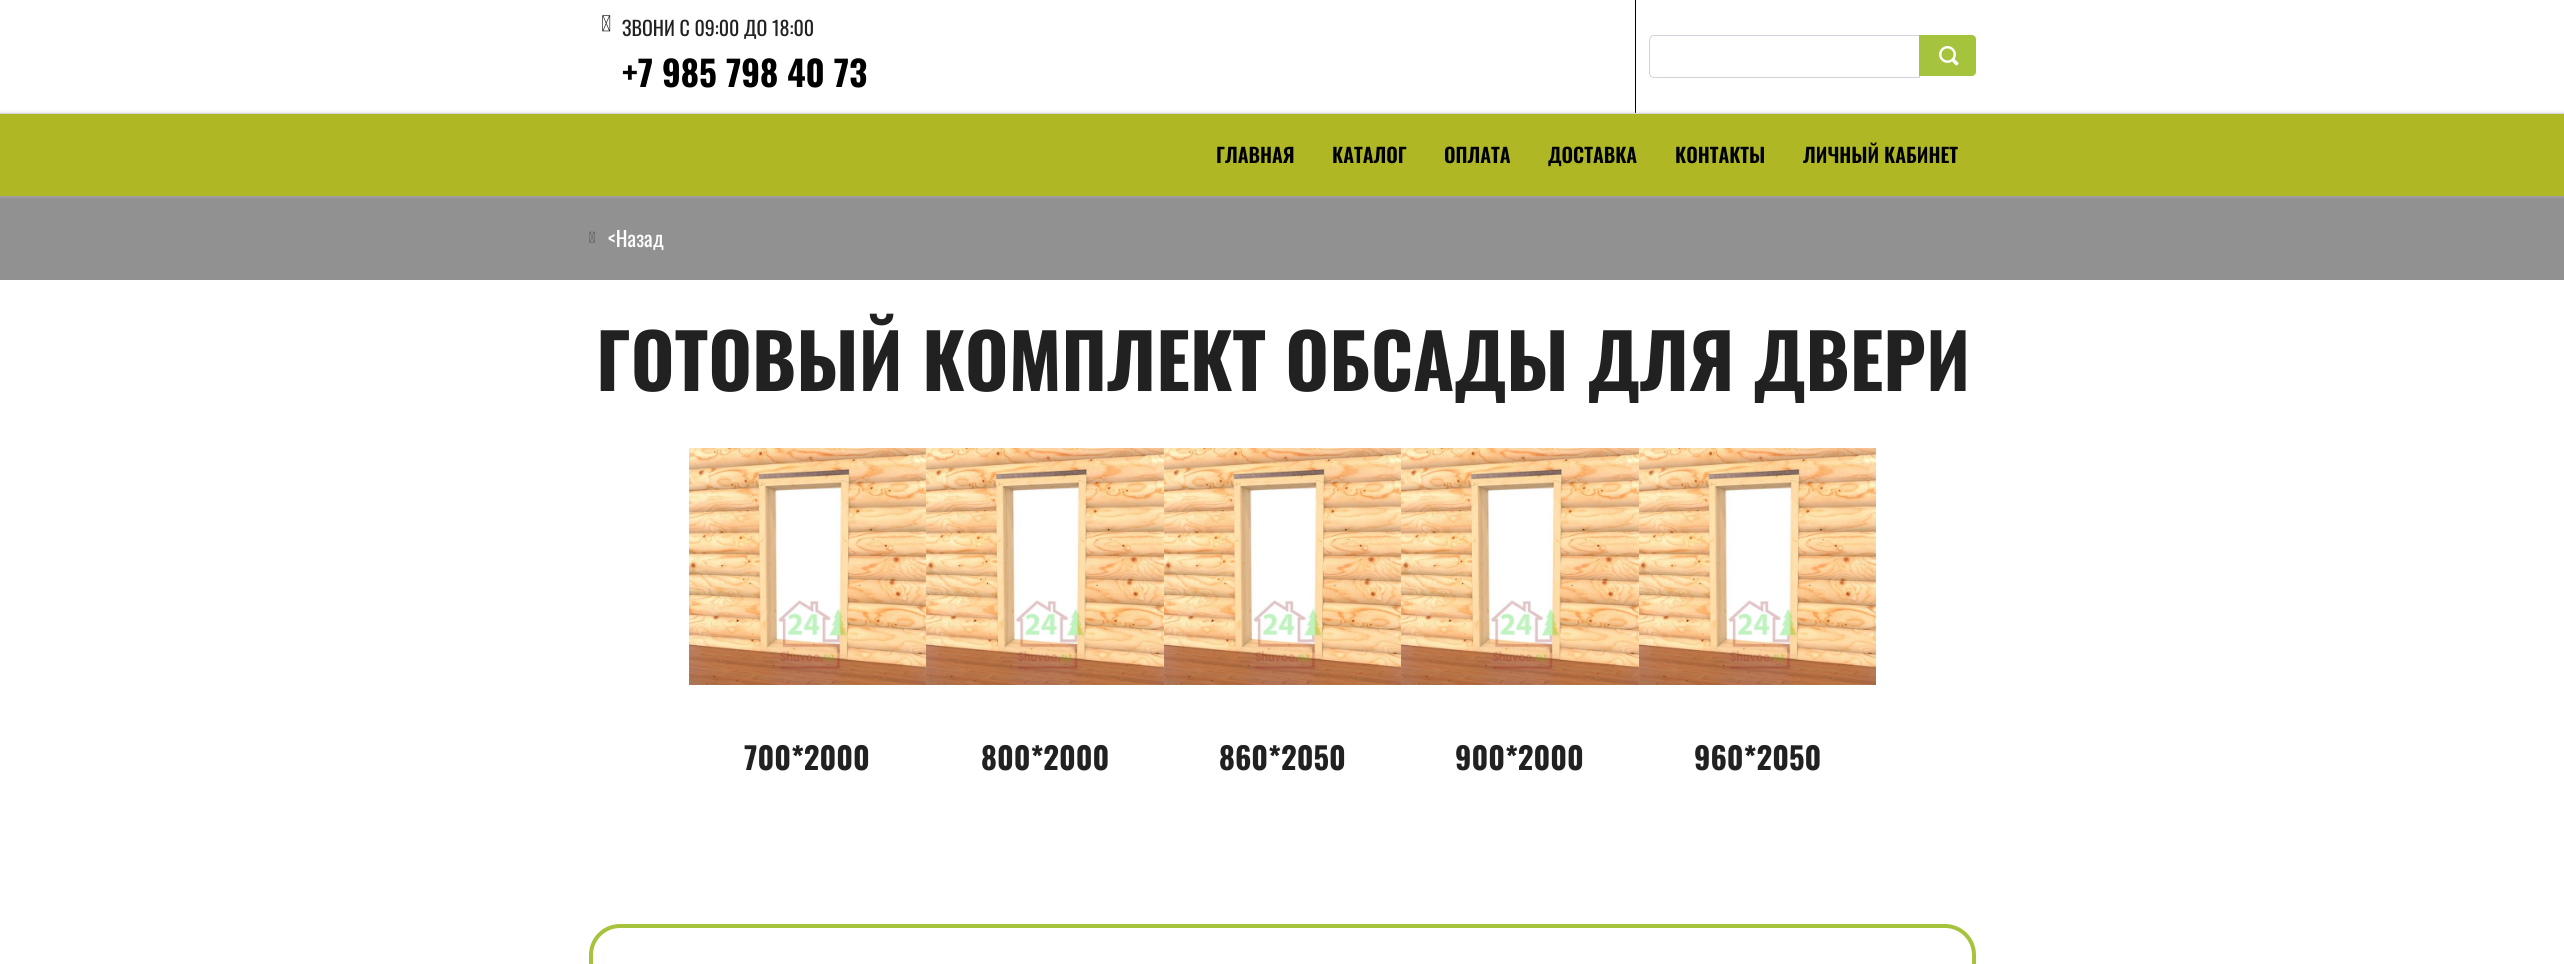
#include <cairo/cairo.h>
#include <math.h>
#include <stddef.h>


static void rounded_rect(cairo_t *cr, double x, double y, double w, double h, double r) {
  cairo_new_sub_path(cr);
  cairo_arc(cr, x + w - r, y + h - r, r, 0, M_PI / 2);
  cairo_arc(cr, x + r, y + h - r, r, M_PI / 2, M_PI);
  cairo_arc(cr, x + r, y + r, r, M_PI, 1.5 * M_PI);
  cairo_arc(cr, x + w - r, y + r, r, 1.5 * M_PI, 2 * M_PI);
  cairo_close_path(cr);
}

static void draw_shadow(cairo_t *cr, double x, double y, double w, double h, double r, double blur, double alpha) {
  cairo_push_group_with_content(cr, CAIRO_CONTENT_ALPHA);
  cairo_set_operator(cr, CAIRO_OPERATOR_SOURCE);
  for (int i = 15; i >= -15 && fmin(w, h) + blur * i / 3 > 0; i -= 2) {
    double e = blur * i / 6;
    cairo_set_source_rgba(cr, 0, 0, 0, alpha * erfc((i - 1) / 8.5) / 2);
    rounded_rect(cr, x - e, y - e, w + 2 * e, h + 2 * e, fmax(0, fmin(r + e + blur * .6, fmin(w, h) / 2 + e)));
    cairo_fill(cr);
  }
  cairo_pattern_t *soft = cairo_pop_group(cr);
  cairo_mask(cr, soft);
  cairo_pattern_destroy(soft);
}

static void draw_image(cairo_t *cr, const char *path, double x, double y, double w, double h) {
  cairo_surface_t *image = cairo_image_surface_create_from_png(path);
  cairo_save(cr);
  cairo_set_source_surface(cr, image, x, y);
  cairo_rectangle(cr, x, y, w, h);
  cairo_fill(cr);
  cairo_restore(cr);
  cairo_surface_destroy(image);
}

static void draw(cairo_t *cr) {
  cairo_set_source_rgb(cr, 1, 1, 1);
  cairo_paint(cr);
  cairo_set_source_rgb(cr, 238 / 255.0, 238 / 255.0, 238 / 255.0);
  cairo_rectangle(cr, 0, 113, 2564, 1);
  cairo_fill(cr);
  cairo_set_source_rgb(cr, 0, 0, 0);
  cairo_rectangle(cr, 1635, 0, 1, 113);
  cairo_fill(cr);
  draw_image(cr, "images/1.png", 602, 15, 9, 17);
  cairo_new_path(cr);
  cairo_move_to(cr, 1654, 35.5);
  cairo_line_to(cr, 1919.5, 35.5);
  cairo_line_to(cr, 1919.5, 77.5);
  cairo_line_to(cr, 1654, 77.5);
  cairo_curve_to(cr, 1651.5, 77.5, 1649.5, 75.5, 1649.5, 73);
  cairo_line_to(cr, 1649.5, 40);
  cairo_curve_to(cr, 1649.5, 37.5, 1651.5, 35.5, 1654, 35.5);
  cairo_close_path(cr);
  cairo_set_source_rgb(cr, 206 / 255.0, 212 / 255.0, 218 / 255.0);
  cairo_set_line_width(cr, 1);
  cairo_stroke(cr);
  cairo_set_source_rgb(cr, 165 / 255.0, 195 / 255.0, 60 / 255.0);
  cairo_new_path(cr);
  cairo_move_to(cr, 1919, 35);
  cairo_line_to(cr, 1971, 35);
  cairo_curve_to(cr, 1974, 35, 1976, 37, 1976, 40);
  cairo_line_to(cr, 1976, 71);
  cairo_curve_to(cr, 1976, 74, 1974, 76, 1971, 76);
  cairo_line_to(cr, 1919, 76);
  cairo_close_path(cr);
  cairo_fill(cr);
  draw_image(cr, "images/2.png", 1939, 46, 20, 20);
  cairo_new_path(cr);
  cairo_move_to(cr, 1919.5, 35.5);
  cairo_line_to(cr, 1971, 35.5);
  cairo_curve_to(cr, 1973.5, 35.5, 1975.5, 37.5, 1975.5, 40);
  cairo_line_to(cr, 1975.5, 71);
  cairo_curve_to(cr, 1975.5, 73.5, 1973.5, 75.5, 1971, 75.5);
  cairo_line_to(cr, 1919.5, 75.5);
  cairo_close_path(cr);
  cairo_stroke(cr);
  cairo_set_source_rgb(cr, 175 / 255.0, 184 / 255.0, 36 / 255.0);
  cairo_rectangle(cr, 0, 114, 2564, 82);
  cairo_fill(cr);
  cairo_set_source_rgb(cr, 145 / 255.0, 145 / 255.0, 145 / 255.0);
  cairo_rectangle(cr, 0, 196, 2564, 84);
  cairo_fill(cr);
  cairo_save(cr);
  cairo_set_fill_rule(cr, CAIRO_FILL_RULE_EVEN_ODD);
  cairo_new_path(cr);
  cairo_move_to(cr, 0, 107);
  cairo_line_to(cr, 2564, 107);
  cairo_line_to(cr, 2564, 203);
  cairo_line_to(cr, 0, 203);
  cairo_close_path(cr);
  cairo_move_to(cr, 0, 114);
  cairo_line_to(cr, 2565, 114);
  cairo_line_to(cr, 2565, 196);
  cairo_line_to(cr, 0, 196);
  cairo_close_path(cr);
  cairo_clip(cr);
  cairo_set_source_rgb(cr, 181 / 255.0, 181 / 255.0, 181 / 255.0);
  draw_shadow(cr, 0, 114, 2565, 82, 0, 2, 1);
  cairo_restore(cr);
  draw_image(cr, "images/3.png", 589, 231, 6, 12);
  draw_image(cr, "images/4.png", 689, 448, 237, 237);
  draw_image(cr, "images/5.png", 926, 448, 238, 237);
  draw_image(cr, "images/6.png", 1164, 448, 237, 237);
  draw_image(cr, "images/5.png", 1401, 448, 238, 237);
  draw_image(cr, "images/4.png", 1639, 448, 237, 237);
  rounded_rect(cr, 591, 926, 1383, 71, 29);
  cairo_set_source_rgb(cr, 165 / 255.0, 195 / 255.0, 60 / 255.0);
  cairo_set_line_width(cr, 4);
  cairo_stroke(cr);
  cairo_select_font_face(cr, "Oswald", CAIRO_FONT_SLANT_NORMAL, CAIRO_FONT_WEIGHT_NORMAL);
  cairo_set_font_size(cr, 20);
  cairo_set_source_rgb(cr, 33 / 255.0, 33 / 255.0, 33 / 255.0);
  cairo_move_to(cr, 622, 36);
  cairo_show_text(cr, "ЗВОНИ С 09:00 ДО 18:00");
  cairo_select_font_face(cr, "Oswald", CAIRO_FONT_SLANT_NORMAL, CAIRO_FONT_WEIGHT_BOLD);
  cairo_set_font_size(cr, 35);
  cairo_set_source_rgb(cr, 0, 0, 0);
  cairo_move_to(cr, 622, 87);
  cairo_show_text(cr, "+7 985 798 40 73");
  cairo_select_font_face(cr, "Oswald SemiBold", CAIRO_FONT_SLANT_NORMAL, CAIRO_FONT_WEIGHT_NORMAL);
  cairo_set_font_size(cr, 20);
  cairo_move_to(cr, 1216, 163);
  cairo_show_text(cr, "ГЛАВНАЯ");
  cairo_move_to(cr, 1332, 163);
  cairo_show_text(cr, "КАТАЛОГ");
  cairo_move_to(cr, 1444, 163);
  cairo_show_text(cr, "ОПЛАТА");
  cairo_move_to(cr, 1548, 163);
  cairo_show_text(cr, "ДОСТАВКА");
  cairo_move_to(cr, 1675, 163);
  cairo_show_text(cr, "КОНТАКТЫ");
  cairo_move_to(cr, 1803, 163);
  cairo_show_text(cr, "ЛИЧНЫЙ КАБИНЕТ");
  cairo_select_font_face(cr, "Oswald", CAIRO_FONT_SLANT_NORMAL, CAIRO_FONT_WEIGHT_NORMAL);
  cairo_set_font_size(cr, 21);
  cairo_set_source_rgb(cr, 1, 1, 1);
  cairo_move_to(cr, 608, 247);
  cairo_show_text(cr, "<Назад");
  cairo_select_font_face(cr, "Oswald", CAIRO_FONT_SLANT_NORMAL, CAIRO_FONT_WEIGHT_BOLD);
  cairo_set_font_size(cr, 75);
  cairo_set_source_rgb(cr, 33 / 255.0, 33 / 255.0, 33 / 255.0);
  cairo_move_to(cr, 596, 391);
  cairo_show_text(cr, "ГОТОВЫЙ КОМПЛЕКТ ОБСАДЫ ДЛЯ ДВЕРИ");
  cairo_set_font_size(cr, 30.5);
  cairo_move_to(cr, 744, 770);
  cairo_show_text(cr, "700*2000");
  cairo_move_to(cr, 981, 770);
  cairo_show_text(cr, "800*2000");
  cairo_move_to(cr, 1219, 770);
  cairo_show_text(cr, "860*2050");
  cairo_move_to(cr, 1455, 770);
  cairo_show_text(cr, "900*2000");
  cairo_move_to(cr, 1694, 770);
  cairo_show_text(cr, "960*2050");
}

int main(void) {
  cairo_surface_t *surface = cairo_image_surface_create(CAIRO_FORMAT_RGB24, 2564, 964);
  cairo_t *cr = cairo_create(surface);
  cairo_font_options_t *options = cairo_font_options_create();
  cairo_font_options_set_hint_metrics(options, CAIRO_HINT_METRICS_OFF);
  cairo_font_options_set_hint_style(options, CAIRO_HINT_STYLE_NONE);
  cairo_set_font_options(cr, options);
  cairo_set_miter_limit(cr, 4);
  draw(cr);
  cairo_surface_write_to_png(surface, "out.png");
  cairo_font_options_destroy(options);
  cairo_destroy(cr);
  cairo_surface_destroy(surface);
  return 0;
}
